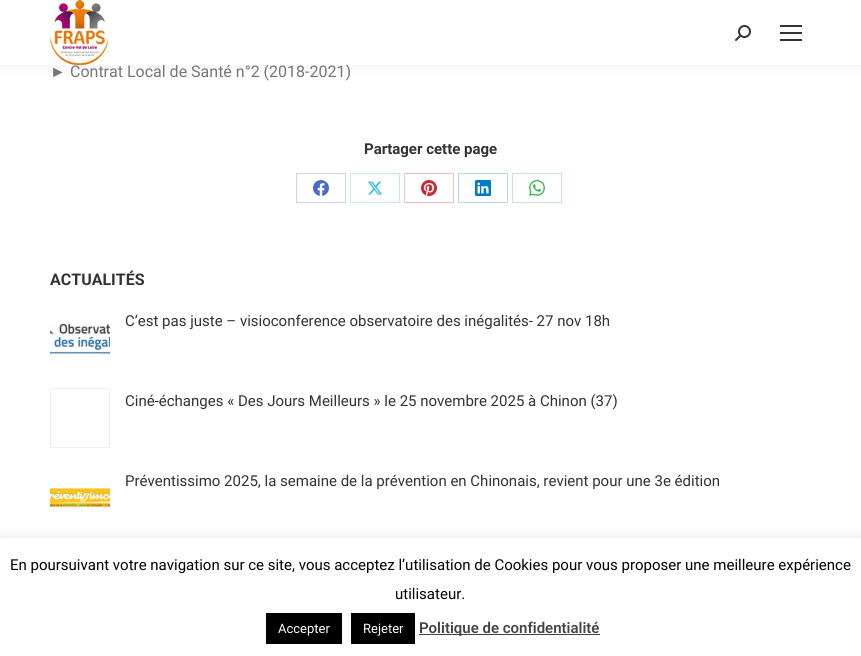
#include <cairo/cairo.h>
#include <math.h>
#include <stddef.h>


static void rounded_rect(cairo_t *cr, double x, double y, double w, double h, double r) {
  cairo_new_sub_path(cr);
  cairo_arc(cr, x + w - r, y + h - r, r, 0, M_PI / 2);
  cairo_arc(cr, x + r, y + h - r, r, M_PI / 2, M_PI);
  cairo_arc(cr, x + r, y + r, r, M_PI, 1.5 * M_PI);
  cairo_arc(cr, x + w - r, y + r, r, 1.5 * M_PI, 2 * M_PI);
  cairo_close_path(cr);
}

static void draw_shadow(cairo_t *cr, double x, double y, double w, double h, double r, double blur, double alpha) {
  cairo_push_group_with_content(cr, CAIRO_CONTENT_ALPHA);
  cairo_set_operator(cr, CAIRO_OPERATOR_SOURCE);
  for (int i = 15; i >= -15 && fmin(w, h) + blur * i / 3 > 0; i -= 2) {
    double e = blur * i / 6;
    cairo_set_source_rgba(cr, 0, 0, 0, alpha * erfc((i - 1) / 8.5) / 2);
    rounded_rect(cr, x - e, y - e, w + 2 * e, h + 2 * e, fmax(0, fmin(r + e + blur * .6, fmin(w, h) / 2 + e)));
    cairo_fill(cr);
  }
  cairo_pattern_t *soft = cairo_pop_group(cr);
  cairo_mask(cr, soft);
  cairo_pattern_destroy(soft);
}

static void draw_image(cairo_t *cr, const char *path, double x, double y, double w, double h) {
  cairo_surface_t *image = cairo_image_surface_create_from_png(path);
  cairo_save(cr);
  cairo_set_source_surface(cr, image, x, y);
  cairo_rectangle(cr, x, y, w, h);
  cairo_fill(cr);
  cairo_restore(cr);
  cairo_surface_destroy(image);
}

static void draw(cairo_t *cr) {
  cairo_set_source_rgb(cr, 1, 1, 1);
  cairo_paint(cr);
  cairo_set_source_rgb(cr, 0, 0, 0);
  draw_shadow(cr, -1, -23, 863, 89, 0, 7.5, 0.07);
  cairo_rectangle(cr, 296.5, 173.5, 49, 29);
  cairo_set_source_rgb(cr, 201 / 255.0, 210 / 255.0, 238 / 255.0);
  cairo_set_line_width(cr, 1);
  cairo_stroke(cr);
  draw_image(cr, "images/3.png", 313, 180, 16, 16);
  cairo_rectangle(cr, 350.5, 173.5, 49, 29);
  cairo_set_source_rgb(cr, 191 / 255.0, 236 / 255.0, 249 / 255.0);
  cairo_stroke(cr);
  draw_image(cr, "images/4.png", 368, 181, 15, 14);
  cairo_rectangle(cr, 404.5, 173.5, 49, 29);
  cairo_set_source_rgb(cr, 241 / 255.0, 191 / 255.0, 194 / 255.0);
  cairo_stroke(cr);
  draw_image(cr, "images/5.png", 421, 180, 16, 16);
  cairo_rectangle(cr, 458.5, 173.5, 49, 29);
  cairo_set_source_rgb(cr, 179 / 255.0, 215 / 255.0, 238 / 255.0);
  cairo_stroke(cr);
  draw_image(cr, "images/6.png", 475, 180, 16, 16);
  cairo_rectangle(cr, 512.5, 173.5, 49, 29);
  cairo_set_source_rgb(cr, 195 / 255.0, 233 / 255.0, 202 / 255.0);
  cairo_stroke(cr);
  draw_image(cr, "images/7.png", 529, 180, 16, 16);
  draw_image(cr, "images/8.png", 50, 320, 60, 36);
  cairo_rectangle(cr, 50.5, 388.5, 59, 59);
  cairo_set_source_rgb(cr, 238 / 255.0, 238 / 255.0, 239 / 255.0);
  cairo_stroke(cr);
  draw_image(cr, "images/9.png", 50, 488, 60, 20);
  cairo_set_source_rgb(cr, 172 / 255.0, 171 / 255.0, 171 / 255.0);
  draw_shadow(cr, 0, 537, 861, 118, 0, 5, 0.3);
  cairo_set_source_rgb(cr, 1, 1, 1);
  cairo_rectangle(cr, 0, 538, 861, 118);
  cairo_fill(cr);
  cairo_set_source_rgb(cr, 0, 0, 0);
  cairo_rectangle(cr, 266, 613, 76, 31);
  cairo_fill(cr);
  cairo_rectangle(cr, 351, 613, 64, 31);
  cairo_fill(cr);
  cairo_set_source_rgb(cr, 68 / 255.0, 68 / 255.0, 68 / 255.0);
  cairo_rectangle(cr, 419, 634, 181, 1);
  cairo_fill(cr);
  cairo_select_font_face(cr, "Liberation Sans", CAIRO_FONT_SLANT_NORMAL, CAIRO_FONT_WEIGHT_NORMAL);
  cairo_set_font_size(cr, 16);
  cairo_set_source_rgb(cr, 116 / 255.0, 118 / 255.0, 122 / 255.0);
  cairo_move_to(cr, 50, 77);
  cairo_show_text(cr, "►");
  cairo_select_font_face(cr, "Roboto", CAIRO_FONT_SLANT_NORMAL, CAIRO_FONT_WEIGHT_NORMAL);
  cairo_move_to(cr, 70, 77);
  cairo_show_text(cr, "Contrat Local de Santé n°2 (2018-2021)");
  cairo_set_source_rgb(cr, 1, 1, 1);
  cairo_rectangle(cr, 0, 0, 861, 65);
  cairo_fill(cr);
  draw_image(cr, "images/2.png", 735, 25, 16, 16);
  cairo_set_source_rgb(cr, 51 / 255.0, 51 / 255.0, 51 / 255.0);
  cairo_rectangle(cr, 780, 39, 22, 2);
  cairo_fill(cr);
  cairo_rectangle(cr, 780, 32, 22, 2);
  cairo_fill(cr);
  cairo_rectangle(cr, 780, 25, 22, 2);
  cairo_fill(cr);
  draw_image(cr, "images/1.png", 50, 0, 58, 65);
  cairo_select_font_face(cr, "Roboto", CAIRO_FONT_SLANT_NORMAL, CAIRO_FONT_WEIGHT_BOLD);
  cairo_set_font_size(cr, 15);
  cairo_move_to(cr, 364, 154);
  cairo_show_text(cr, "Partager cette page");
  cairo_set_font_size(cr, 16);
  cairo_move_to(cr, 50, 285);
  cairo_show_text(cr, "ACTUALITÉS");
  cairo_select_font_face(cr, "Roboto", CAIRO_FONT_SLANT_NORMAL, CAIRO_FONT_WEIGHT_NORMAL);
  cairo_set_font_size(cr, 15);
  cairo_move_to(cr, 125, 326);
  cairo_show_text(cr, "C’est pas juste – visioconference observatoire des inégalités- 27 nov 18h");
  cairo_move_to(cr, 125, 406);
  cairo_show_text(cr, "Ciné-échanges « Des Jours Meilleurs » le 25 novembre 2025 à Chinon (37)");
  cairo_move_to(cr, 125, 486);
  cairo_show_text(cr, "Préventissimo 2025, la semaine de la prévention en Chinonais, revient pour une 3e édition");
  cairo_set_source_rgb(cr, 0, 0, 0);
  cairo_move_to(cr, 10, 570);
  cairo_show_text(cr, "En poursuivant votre navigation sur ce site, vous acceptez l’utilisation de Cookies pour vous proposer une meilleure expérience");
  cairo_move_to(cr, 395, 599);
  cairo_show_text(cr, "utilisateur.");
  cairo_set_font_size(cr, 13);
  cairo_set_source_rgb(cr, 1, 1, 1);
  cairo_move_to(cr, 278, 633);
  cairo_show_text(cr, "Accepter");
  cairo_move_to(cr, 363, 633);
  cairo_show_text(cr, "Rejeter");
  cairo_select_font_face(cr, "Roboto SemiBold", CAIRO_FONT_SLANT_NORMAL, CAIRO_FONT_WEIGHT_NORMAL);
  cairo_set_font_size(cr, 15);
  cairo_set_source_rgb(cr, 68 / 255.0, 68 / 255.0, 68 / 255.0);
  cairo_move_to(cr, 419, 633);
  cairo_show_text(cr, "Politique de confidentialité");
}

int main(void) {
  cairo_surface_t *surface = cairo_image_surface_create(CAIRO_FORMAT_RGB24, 861, 656);
  cairo_t *cr = cairo_create(surface);
  cairo_font_options_t *options = cairo_font_options_create();
  cairo_font_options_set_hint_metrics(options, CAIRO_HINT_METRICS_OFF);
  cairo_font_options_set_hint_style(options, CAIRO_HINT_STYLE_NONE);
  cairo_set_font_options(cr, options);
  cairo_set_miter_limit(cr, 4);
  draw(cr);
  cairo_surface_write_to_png(surface, "out.png");
  cairo_font_options_destroy(options);
  cairo_destroy(cr);
  cairo_surface_destroy(surface);
  return 0;
}
